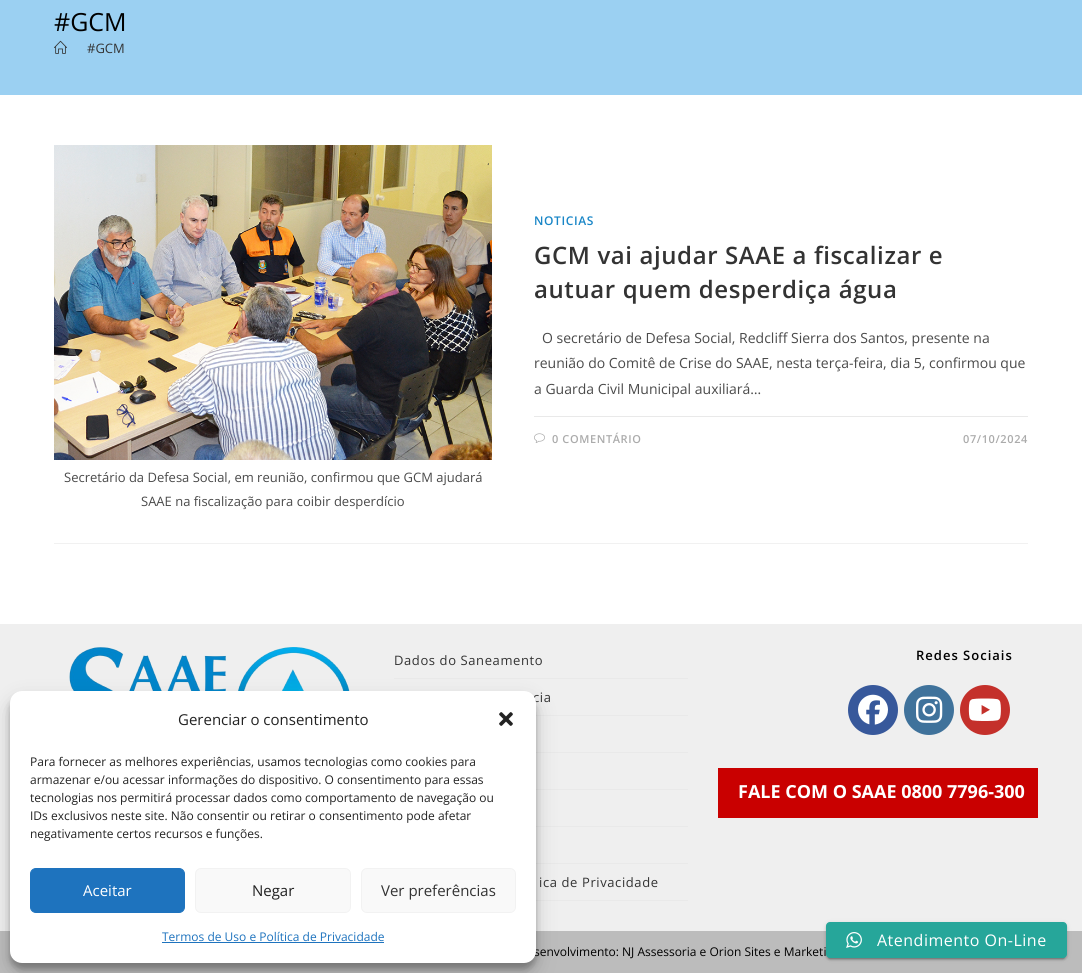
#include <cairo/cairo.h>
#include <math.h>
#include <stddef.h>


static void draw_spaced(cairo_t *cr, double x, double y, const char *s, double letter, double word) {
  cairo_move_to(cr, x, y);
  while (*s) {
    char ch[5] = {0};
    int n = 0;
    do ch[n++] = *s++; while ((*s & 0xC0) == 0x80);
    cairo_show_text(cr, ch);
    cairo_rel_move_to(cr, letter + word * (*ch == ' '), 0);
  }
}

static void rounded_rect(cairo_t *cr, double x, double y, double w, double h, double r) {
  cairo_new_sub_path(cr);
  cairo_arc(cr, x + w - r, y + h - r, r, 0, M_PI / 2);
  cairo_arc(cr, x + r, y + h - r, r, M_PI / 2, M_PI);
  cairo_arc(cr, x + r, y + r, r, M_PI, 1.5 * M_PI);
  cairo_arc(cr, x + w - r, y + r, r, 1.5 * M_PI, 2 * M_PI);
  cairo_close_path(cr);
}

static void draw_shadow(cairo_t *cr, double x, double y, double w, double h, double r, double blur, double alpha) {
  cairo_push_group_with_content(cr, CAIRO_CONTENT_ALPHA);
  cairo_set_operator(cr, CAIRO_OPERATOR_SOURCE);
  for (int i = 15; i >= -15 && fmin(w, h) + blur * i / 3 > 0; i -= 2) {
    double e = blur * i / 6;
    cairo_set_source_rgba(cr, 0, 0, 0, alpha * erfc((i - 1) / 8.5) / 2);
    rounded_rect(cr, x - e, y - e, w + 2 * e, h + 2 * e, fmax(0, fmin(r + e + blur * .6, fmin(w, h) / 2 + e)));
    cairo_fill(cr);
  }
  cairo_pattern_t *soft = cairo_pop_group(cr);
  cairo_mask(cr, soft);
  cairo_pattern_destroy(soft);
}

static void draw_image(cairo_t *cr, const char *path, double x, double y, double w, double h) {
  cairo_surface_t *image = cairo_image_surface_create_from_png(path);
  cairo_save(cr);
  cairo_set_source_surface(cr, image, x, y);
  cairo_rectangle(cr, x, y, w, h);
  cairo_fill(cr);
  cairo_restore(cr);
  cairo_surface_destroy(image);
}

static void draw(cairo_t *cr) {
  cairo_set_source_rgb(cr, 1, 1, 1);
  cairo_paint(cr);
  cairo_set_source_rgb(cr, 155 / 255.0, 208 / 255.0, 242 / 255.0);
  cairo_rectangle(cr, 0, 0, 1082, 95);
  cairo_fill(cr);
  draw_image(cr, "images/1.png", 54, 40, 13, 14);
  cairo_set_source_rgb(cr, 241 / 255.0, 241 / 255.0, 241 / 255.0);
  cairo_rectangle(cr, 54, 543, 974, 1);
  cairo_fill(cr);
  cairo_set_source_rgb(cr, 233 / 255.0, 233 / 255.0, 233 / 255.0);
  cairo_rectangle(cr, 534, 416, 494, 1);
  cairo_fill(cr);
  draw_image(cr, "images/2.png", 534, 433, 11, 10);
  draw_image(cr, "images/3.png", 54, 145, 438, 315);
  cairo_set_source_rgb(cr, 239 / 255.0, 239 / 255.0, 239 / 255.0);
  cairo_rectangle(cr, 0, 624, 1082, 307);
  cairo_fill(cr);
  draw_image(cr, "images/4.png", 69, 647, 281, 44);
  cairo_set_source_rgb(cr, 233 / 255.0, 233 / 255.0, 233 / 255.0);
  cairo_rectangle(cr, 394, 678, 294, 1);
  cairo_fill(cr);
  cairo_rectangle(cr, 536, 715, 152, 1);
  cairo_fill(cr);
  cairo_rectangle(cr, 536, 752, 152, 1);
  cairo_fill(cr);
  cairo_rectangle(cr, 536, 789, 152, 1);
  cairo_fill(cr);
  cairo_rectangle(cr, 536, 826, 152, 1);
  cairo_fill(cr);
  cairo_rectangle(cr, 536, 863, 152, 1);
  cairo_fill(cr);
  cairo_rectangle(cr, 536, 900, 152, 1);
  cairo_fill(cr);
  cairo_set_source_rgb(cr, 55 / 255.0, 88 / 255.0, 155 / 255.0);
  cairo_arc(cr, 873, 710, 25, 0, 2 * M_PI);
  cairo_fill(cr);
  draw_image(cr, "images/5.png", 858, 694, 30, 31);
  cairo_set_source_rgb(cr, 63 / 255.0, 114 / 255.0, 155 / 255.0);
  cairo_arc(cr, 929, 710, 25, 0, 2 * M_PI);
  cairo_fill(cr);
  draw_image(cr, "images/6.png", 916, 696, 27, 27);
  cairo_set_source_rgb(cr, 196 / 255.0, 48 / 255.0, 43 / 255.0);
  cairo_arc(cr, 985, 710, 25, 0, 2 * M_PI);
  cairo_fill(cr);
  draw_image(cr, "images/7.png", 968, 698, 33, 23);
  cairo_set_source_rgb(cr, 201 / 255.0, 0, 0);
  cairo_rectangle(cr, 718, 768, 320, 50);
  cairo_fill(cr);
  cairo_set_source_rgb(cr, 188 / 255.0, 188 / 255.0, 188 / 255.0);
  cairo_rectangle(cr, 0, 931, 1082, 42);
  cairo_fill(cr);
  cairo_set_source_rgb(cr, 0, 0, 0);
  draw_shadow(cr, 10, 697, 526, 272, 12, 3, 0.23);
  draw_shadow(cr, 10, 701, 526, 272, 12, 10, 0.19);
  draw_shadow(cr, 828, 927, 237, 32, 2, 0.5, 0.2);
  draw_shadow(cr, 826, 923, 241, 36, 4, 2.5, 0.12);
  draw_shadow(cr, 826, 924, 241, 36, 4, 1, 0.14);
  cairo_set_source_rgb(cr, 38 / 255.0, 166 / 255.0, 154 / 255.0);
  rounded_rect(cr, 826, 922, 241, 36, 4);
  cairo_fill(cr);
  draw_image(cr, "images/9.png", 846, 932, 16, 16);
  cairo_select_font_face(cr, "Open Sans", CAIRO_FONT_SLANT_NORMAL, CAIRO_FONT_WEIGHT_NORMAL);
  cairo_set_font_size(cr, 25);
  cairo_set_source_rgb(cr, 0, 0, 0);
  cairo_move_to(cr, 54, 31);
  cairo_show_text(cr, "#GCM");
  cairo_set_font_size(cr, 13);
  cairo_set_source_rgb(cr, 51 / 255.0, 51 / 255.0, 51 / 255.0);
  cairo_move_to(cr, 87, 53);
  cairo_show_text(cr, "#GCM");
  cairo_select_font_face(cr, "Open Sans SemiBold", CAIRO_FONT_SLANT_NORMAL, CAIRO_FONT_WEIGHT_NORMAL);
  cairo_set_font_size(cr, 12);
  cairo_set_source_rgb(cr, 25 / 255.0, 134 / 255.0, 199 / 255.0);
  draw_spaced(cr, 534, 225, "NOTICIAS", 0.6, 0);
  cairo_set_font_size(cr, 24);
  cairo_set_source_rgb(cr, 51 / 255.0, 51 / 255.0, 51 / 255.0);
  draw_spaced(cr, 534, 264, "GCM vai ajudar SAAE a fiscalizar e", 0.6, 0);
  draw_spaced(cr, 534, 298, "autuar quem desperdiça água", 0.6, 0);
  cairo_select_font_face(cr, "Open Sans", CAIRO_FONT_SLANT_NORMAL, CAIRO_FONT_WEIGHT_NORMAL);
  cairo_set_font_size(cr, 14);
  cairo_set_source_rgb(cr, 74 / 255.0, 74 / 255.0, 74 / 255.0);
  cairo_move_to(cr, 542, 343);
  cairo_show_text(cr, "O secretário de Defesa Social, Redcliff Sierra dos Santos, presente na");
  cairo_move_to(cr, 534, 368);
  cairo_show_text(cr, "reunião do Comitê de Crise do SAAE, nesta terça-feira, dia 5, confirmou que");
  cairo_move_to(cr, 534, 394);
  cairo_show_text(cr, "a Guarda Civil Municipal auxiliará…");
  cairo_select_font_face(cr, "Open Sans SemiBold", CAIRO_FONT_SLANT_NORMAL, CAIRO_FONT_WEIGHT_NORMAL);
  cairo_set_font_size(cr, 11);
  cairo_set_source_rgb(cr, 171 / 255.0, 171 / 255.0, 171 / 255.0);
  draw_spaced(cr, 552, 443, "0 COMENTÁRIO", 0.6, 0);
  draw_spaced(cr, 963, 443, "07/10/2024", 0.6, 0);
  cairo_select_font_face(cr, "Open Sans", CAIRO_FONT_SLANT_NORMAL, CAIRO_FONT_WEIGHT_NORMAL);
  cairo_set_font_size(cr, 13);
  cairo_set_source_rgb(cr, 74 / 255.0, 74 / 255.0, 74 / 255.0);
  cairo_move_to(cr, 64, 482);
  cairo_show_text(cr, "Secretário da Defesa Social, em reunião, confirmou que GCM ajudará");
  cairo_move_to(cr, 141, 506);
  cairo_show_text(cr, "SAAE na fiscalização para coibir desperdício");
  cairo_set_source_rgb(cr, 51 / 255.0, 51 / 255.0, 51 / 255.0);
  draw_spaced(cr, 394, 665, "Dados do Saneamento", 0.6, 0);
  draw_spaced(cr, 533, 702, "cia", 0.6, 0);
  draw_spaced(cr, 539, 887, "ica de Privacidade", 0.6, 0);
  cairo_select_font_face(cr, "Open Sans SemiBold", CAIRO_FONT_SLANT_NORMAL, CAIRO_FONT_WEIGHT_NORMAL);
  cairo_set_source_rgb(cr, 0, 0, 0);
  draw_spaced(cr, 916, 660, "Redes Sociais", 1, 0);
  cairo_select_font_face(cr, "Open Sans", CAIRO_FONT_SLANT_NORMAL, CAIRO_FONT_WEIGHT_BOLD);
  cairo_set_font_size(cr, 18);
  cairo_set_source_rgb(cr, 1, 1, 1);
  cairo_move_to(cr, 738, 798);
  cairo_show_text(cr, "FALE COM O SAAE 0800 7796-300");
  cairo_select_font_face(cr, "Open Sans", CAIRO_FONT_SLANT_NORMAL, CAIRO_FONT_WEIGHT_NORMAL);
  cairo_set_font_size(cr, 12);
  cairo_set_source_rgb(cr, 0, 0, 0);
  cairo_move_to(cr, 534, 956);
  cairo_show_text(cr, "senvolvimento: NJ Assessoria e Orion Sites e Marketi");
  cairo_set_source_rgb(cr, 1, 1, 1);
  rounded_rect(cr, 10, 691, 526, 272, 12);
  cairo_fill(cr);
  cairo_set_font_size(cr, 15);
  cairo_set_source_rgb(cr, 34 / 255.0, 34 / 255.0, 34 / 255.0);
  cairo_move_to(cr, 178, 725);
  cairo_show_text(cr, "Gerenciar o consentimento");
  draw_image(cr, "images/8.png", 499, 712, 14, 14);
  cairo_set_font_size(cr, 12);
  cairo_move_to(cr, 30, 766);
  cairo_show_text(cr, "Para fornecer as melhores experiências, usamos tecnologias como cookies para");
  cairo_move_to(cr, 30, 784);
  cairo_show_text(cr, "armazenar e/ou acessar informações do dispositivo. O consentimento para essas");
  cairo_move_to(cr, 30, 802);
  cairo_show_text(cr, "tecnologias nos permitirá processar dados como comportamento de navegação ou");
  cairo_move_to(cr, 30, 820);
  cairo_show_text(cr, "IDs exclusivos neste site. Não consentir ou retirar o consentimento pode afetar");
  cairo_move_to(cr, 30, 838);
  cairo_show_text(cr, "negativamente certos recursos e funções.");
  cairo_set_source_rgb(cr, 30 / 255.0, 115 / 255.0, 190 / 255.0);
  rounded_rect(cr, 30.5, 868.5, 154, 44, 5.5);
  cairo_fill_preserve(cr);
  cairo_set_line_width(cr, 1);
  cairo_stroke(cr);
  cairo_set_font_size(cr, 15);
  cairo_set_source_rgb(cr, 1, 1, 1);
  cairo_move_to(cr, 83, 896);
  cairo_show_text(cr, "Aceitar");
  cairo_set_source_rgb(cr, 249 / 255.0, 249 / 255.0, 249 / 255.0);
  rounded_rect(cr, 195.5, 868.5, 155, 44, 5.5);
  cairo_fill_preserve(cr);
  cairo_set_source_rgb(cr, 242 / 255.0, 242 / 255.0, 242 / 255.0);
  cairo_stroke(cr);
  cairo_set_source_rgb(cr, 34 / 255.0, 34 / 255.0, 34 / 255.0);
  cairo_move_to(cr, 252, 896);
  cairo_show_text(cr, "Negar");
  cairo_set_source_rgb(cr, 249 / 255.0, 249 / 255.0, 249 / 255.0);
  rounded_rect(cr, 361.5, 868.5, 154, 44, 5.5);
  cairo_fill_preserve(cr);
  cairo_set_source_rgb(cr, 242 / 255.0, 242 / 255.0, 242 / 255.0);
  cairo_stroke(cr);
  cairo_set_source_rgb(cr, 51 / 255.0, 51 / 255.0, 51 / 255.0);
  cairo_move_to(cr, 381, 896);
  cairo_show_text(cr, "Ver preferências");
  cairo_set_font_size(cr, 12);
  cairo_set_source_rgb(cr, 30 / 255.0, 115 / 255.0, 190 / 255.0);
  cairo_move_to(cr, 162, 941);
  cairo_show_text(cr, "Termos de Uso e Política de Privacidade");
  cairo_rectangle(cr, 162, 942, 222, 1);
  cairo_fill(cr);
  cairo_set_font_size(cr, 16);
  cairo_set_source_rgb(cr, 1, 1, 1);
  draw_spaced(cr, 877, 946, "Atendimento On-Line", 0.5, 0);
}

int main(void) {
  cairo_surface_t *surface = cairo_image_surface_create(CAIRO_FORMAT_RGB24, 1082, 973);
  cairo_t *cr = cairo_create(surface);
  cairo_font_options_t *options = cairo_font_options_create();
  cairo_font_options_set_hint_metrics(options, CAIRO_HINT_METRICS_OFF);
  cairo_font_options_set_hint_style(options, CAIRO_HINT_STYLE_NONE);
  cairo_set_font_options(cr, options);
  cairo_set_miter_limit(cr, 4);
  draw(cr);
  cairo_surface_write_to_png(surface, "out.png");
  cairo_font_options_destroy(options);
  cairo_destroy(cr);
  cairo_surface_destroy(surface);
  return 0;
}
